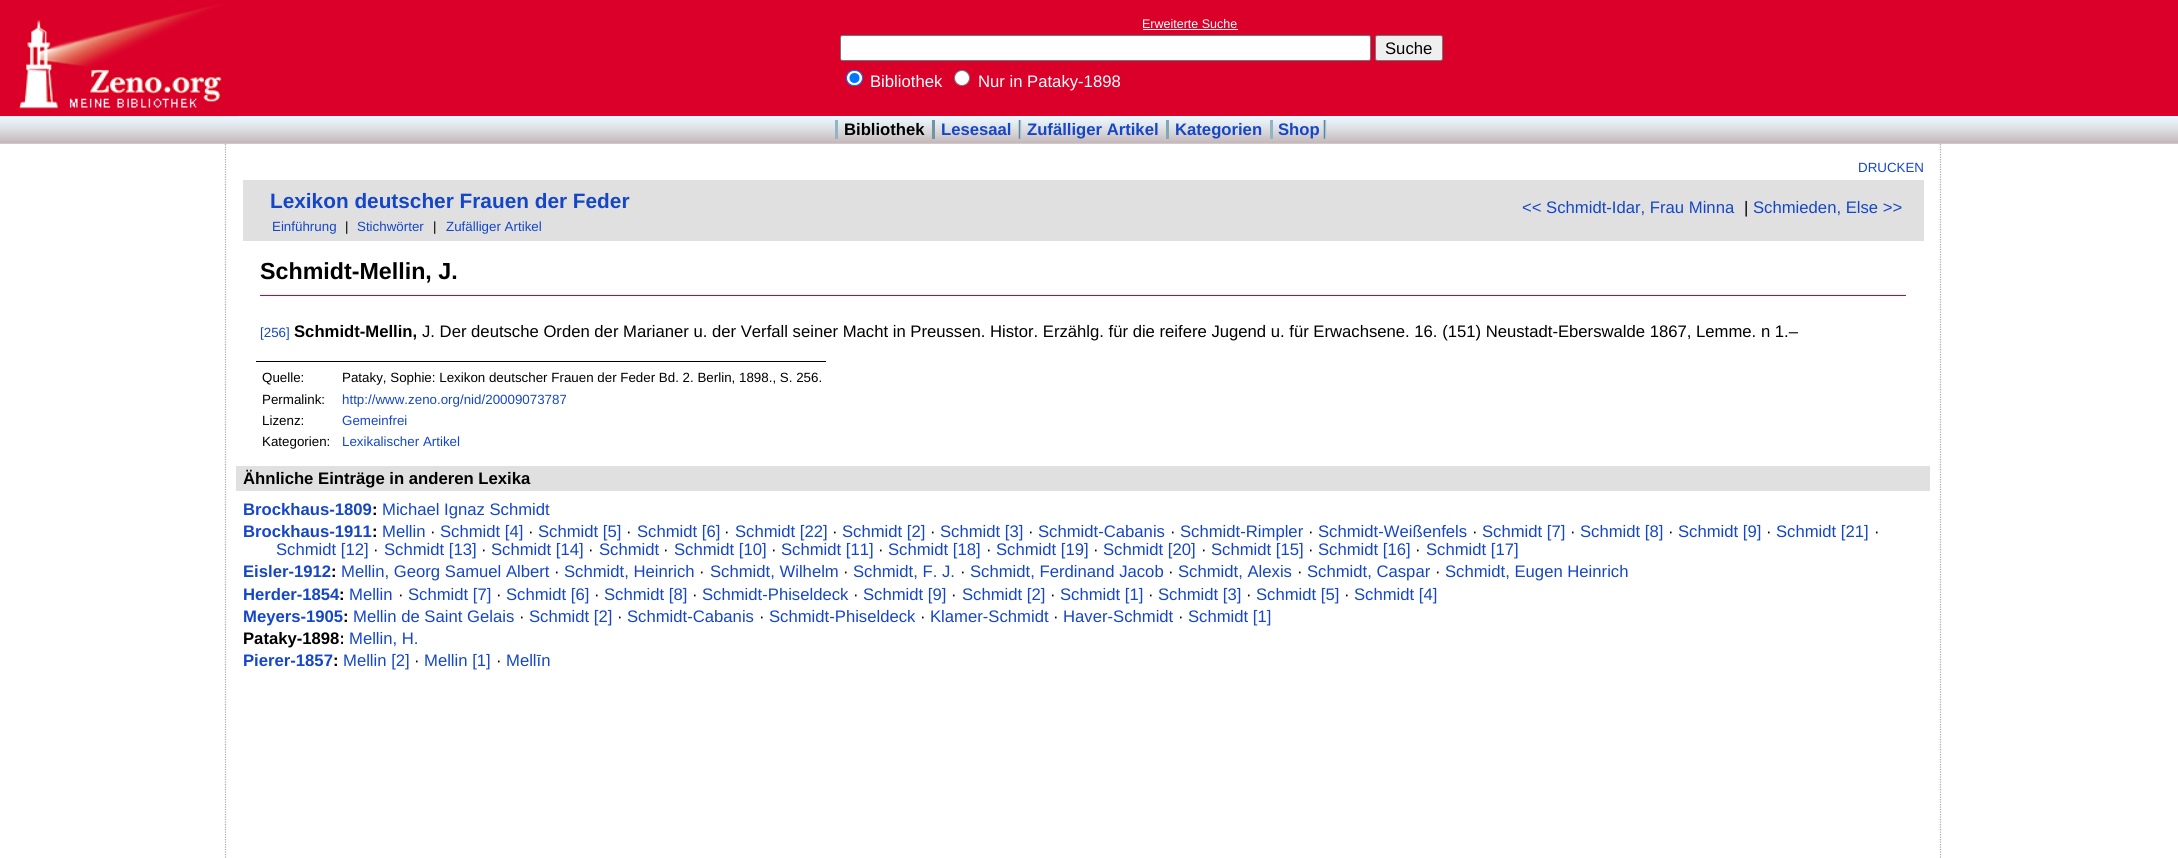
#include <cairo/cairo.h>
#include <math.h>
#include <stddef.h>


static void rounded_rect(cairo_t *cr, double x, double y, double w, double h, double r) {
  cairo_new_sub_path(cr);
  cairo_arc(cr, x + w - r, y + h - r, r, 0, M_PI / 2);
  cairo_arc(cr, x + r, y + h - r, r, M_PI / 2, M_PI);
  cairo_arc(cr, x + r, y + r, r, M_PI, 1.5 * M_PI);
  cairo_arc(cr, x + w - r, y + r, r, 1.5 * M_PI, 2 * M_PI);
  cairo_close_path(cr);
}

static void draw_image(cairo_t *cr, const char *path, double x, double y, double w, double h) {
  cairo_surface_t *image = cairo_image_surface_create_from_png(path);
  cairo_save(cr);
  cairo_set_source_surface(cr, image, x, y);
  cairo_rectangle(cr, x, y, w, h);
  cairo_fill(cr);
  cairo_restore(cr);
  cairo_surface_destroy(image);
}

static void draw(cairo_t *cr) {
  cairo_set_source_rgb(cr, 1, 1, 1);
  cairo_paint(cr);
  cairo_set_source_rgb(cr, 219 / 255.0, 0, 41 / 255.0);
  cairo_rectangle(cr, 0, 0, 2178, 116);
  cairo_fill(cr);
  draw_image(cr, "images/2.png", 0, 116, 2178, 28);
  draw_image(cr, "images/1.png", 0, 4, 238, 113);
  cairo_set_source_rgb(cr, 1, 1, 1);
  cairo_rectangle(cr, 1143, 29, 95, 1);
  cairo_fill(cr);
  rounded_rect(cr, 840.5, 35.5, 530, 25, 2);
  cairo_fill_preserve(cr);
  cairo_set_source_rgb(cr, 118 / 255.0, 118 / 255.0, 118 / 255.0);
  cairo_set_line_width(cr, 1);
  cairo_stroke(cr);
  cairo_set_source_rgb(cr, 239 / 255.0, 239 / 255.0, 239 / 255.0);
  rounded_rect(cr, 1375.5, 35.5, 67, 25, 2);
  cairo_fill_preserve(cr);
  cairo_set_source_rgb(cr, 118 / 255.0, 118 / 255.0, 118 / 255.0);
  cairo_stroke(cr);
  cairo_set_source_rgb(cr, 1, 1, 1);
  rounded_rect(cr, 846.5, 70.5, 16, 15, 7.5);
  cairo_fill_preserve(cr);
  cairo_set_source_rgb(cr, 0, 117 / 255.0, 1);
  cairo_stroke(cr);
  cairo_arc(cr, 854.5, 78, 5, 0, 2 * M_PI);
  cairo_fill(cr);
  cairo_set_source_rgb(cr, 1, 1, 1);
  cairo_arc(cr, 962, 78, 7.5, 0, 2 * M_PI);
  cairo_fill_preserve(cr);
  cairo_set_source_rgb(cr, 118 / 255.0, 118 / 255.0, 118 / 255.0);
  cairo_stroke(cr);
  cairo_set_source_rgb(cr, 146 / 255.0, 181 / 255.0, 196 / 255.0);
  cairo_rectangle(cr, 835, 120, 3, 19);
  cairo_fill(cr);
  cairo_set_source_rgb(cr, 113 / 255.0, 148 / 255.0, 163 / 255.0);
  cairo_rectangle(cr, 932, 120, 3, 19);
  cairo_fill(cr);
  draw_image(cr, "images/3.png", 1018, 120, 4, 19);
  cairo_set_source_rgb(cr, 132 / 255.0, 167 / 255.0, 182 / 255.0);
  cairo_rectangle(cr, 1166, 120, 3, 19);
  cairo_fill(cr);
  cairo_set_source_rgb(cr, 146 / 255.0, 181 / 255.0, 196 / 255.0);
  cairo_rectangle(cr, 1270, 120, 3, 19);
  cairo_fill(cr);
  draw_image(cr, "images/3.png", 1323, 120, 4, 19);
  cairo_new_path(cr);
  cairo_move_to(cr, 1940.5, 144);
  cairo_line_to(cr, 1940.5, 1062.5);
  cairo_set_source_rgb(cr, 170 / 255.0, 170 / 255.0, 170 / 255.0);
  cairo_set_line_width(cr, 1.2);
  cairo_set_dash(cr, (double[]){1.25, 1.25}, 2, 0);
  cairo_stroke(cr);
  cairo_new_path(cr);
  cairo_move_to(cr, 225.5, 144);
  cairo_line_to(cr, 225.5, 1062.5);
  cairo_stroke(cr);
  cairo_set_source_rgb(cr, 224 / 255.0, 224 / 255.0, 224 / 255.0);
  cairo_rectangle(cr, 243, 180, 1681, 61);
  cairo_fill(cr);
  cairo_set_source_rgb(cr, 219 / 255.0, 0, 41 / 255.0);
  cairo_rectangle(cr, 260, 295, 1646, 1);
  cairo_fill(cr);
  cairo_set_source_rgb(cr, 0, 0, 0);
  cairo_rectangle(cr, 256, 361, 570, 1);
  cairo_fill(cr);
  cairo_set_source_rgb(cr, 224 / 255.0, 224 / 255.0, 224 / 255.0);
  cairo_rectangle(cr, 236, 466, 1694, 25);
  cairo_fill(cr);
  cairo_select_font_face(cr, "Liberation Sans", CAIRO_FONT_SLANT_NORMAL, CAIRO_FONT_WEIGHT_NORMAL);
  cairo_set_font_size(cr, 12.5);
  cairo_set_source_rgb(cr, 1, 1, 1);
  cairo_move_to(cr, 1142, 28);
  cairo_show_text(cr, "Erweiterte Suche");
  cairo_set_font_size(cr, 16.67);
  cairo_set_source_rgb(cr, 0, 0, 0);
  cairo_move_to(cr, 1385, 54);
  cairo_show_text(cr, "Suche");
  cairo_set_source_rgb(cr, 1, 1, 1);
  cairo_move_to(cr, 870, 87);
  cairo_show_text(cr, "Bibliothek");
  cairo_move_to(cr, 978, 87);
  cairo_show_text(cr, "Nur in Pataky-1898");
  cairo_select_font_face(cr, "Liberation Sans", CAIRO_FONT_SLANT_NORMAL, CAIRO_FONT_WEIGHT_BOLD);
  cairo_set_source_rgb(cr, 0, 0, 0);
  cairo_move_to(cr, 844, 135);
  cairo_show_text(cr, "Bibliothek");
  cairo_set_source_rgb(cr, 20 / 255.0, 70 / 255.0, 198 / 255.0);
  cairo_move_to(cr, 941, 135);
  cairo_show_text(cr, "Lesesaal");
  cairo_move_to(cr, 1027, 135);
  cairo_show_text(cr, "Zufälliger Artikel");
  cairo_move_to(cr, 1175, 135);
  cairo_show_text(cr, "Kategorien");
  cairo_move_to(cr, 1278, 135);
  cairo_show_text(cr, "Shop");
  cairo_select_font_face(cr, "Liberation Sans", CAIRO_FONT_SLANT_NORMAL, CAIRO_FONT_WEIGHT_NORMAL);
  cairo_set_font_size(cr, 13.35);
  cairo_move_to(cr, 1858, 172);
  cairo_show_text(cr, "DRUCKEN");
  cairo_select_font_face(cr, "Liberation Sans", CAIRO_FONT_SLANT_NORMAL, CAIRO_FONT_WEIGHT_BOLD);
  cairo_set_font_size(cr, 20.8);
  cairo_move_to(cr, 270, 208);
  cairo_show_text(cr, "Lexikon deutscher Frauen der Feder");
  cairo_select_font_face(cr, "Liberation Sans", CAIRO_FONT_SLANT_NORMAL, CAIRO_FONT_WEIGHT_NORMAL);
  cairo_set_font_size(cr, 16.67);
  cairo_move_to(cr, 1522, 213);
  cairo_show_text(cr, "<< Schmidt-Idar, Frau Minna");
  cairo_set_source_rgb(cr, 0, 0, 0);
  cairo_move_to(cr, 1744, 213);
  cairo_show_text(cr, "|");
  cairo_set_source_rgb(cr, 20 / 255.0, 70 / 255.0, 198 / 255.0);
  cairo_move_to(cr, 1753, 213);
  cairo_show_text(cr, "Schmieden, Else >>");
  cairo_set_font_size(cr, 13.35);
  cairo_move_to(cr, 272, 231);
  cairo_show_text(cr, "Einführung");
  cairo_set_source_rgb(cr, 0, 0, 0);
  cairo_move_to(cr, 345, 231);
  cairo_show_text(cr, "|");
  cairo_set_source_rgb(cr, 20 / 255.0, 70 / 255.0, 198 / 255.0);
  cairo_move_to(cr, 357, 231);
  cairo_show_text(cr, "Stichwörter");
  cairo_set_source_rgb(cr, 0, 0, 0);
  cairo_move_to(cr, 433, 231);
  cairo_show_text(cr, "|");
  cairo_set_source_rgb(cr, 20 / 255.0, 70 / 255.0, 198 / 255.0);
  cairo_move_to(cr, 446, 231);
  cairo_show_text(cr, "Zufälliger Artikel");
  cairo_select_font_face(cr, "Liberation Sans", CAIRO_FONT_SLANT_NORMAL, CAIRO_FONT_WEIGHT_BOLD);
  cairo_set_font_size(cr, 23.25);
  cairo_set_source_rgb(cr, 0, 0, 0);
  cairo_move_to(cr, 260, 279);
  cairo_show_text(cr, "Schmidt-Mellin, J.");
  cairo_select_font_face(cr, "Liberation Sans", CAIRO_FONT_SLANT_NORMAL, CAIRO_FONT_WEIGHT_NORMAL);
  cairo_set_font_size(cr, 13.35);
  cairo_set_source_rgb(cr, 20 / 255.0, 70 / 255.0, 198 / 255.0);
  cairo_move_to(cr, 260, 337);
  cairo_show_text(cr, "[256]");
  cairo_select_font_face(cr, "Liberation Sans", CAIRO_FONT_SLANT_NORMAL, CAIRO_FONT_WEIGHT_BOLD);
  cairo_set_font_size(cr, 16.67);
  cairo_set_source_rgb(cr, 0, 0, 0);
  cairo_move_to(cr, 294, 337);
  cairo_show_text(cr, "Schmidt-Mellin,");
  cairo_select_font_face(cr, "Liberation Sans", CAIRO_FONT_SLANT_NORMAL, CAIRO_FONT_WEIGHT_NORMAL);
  cairo_move_to(cr, 422, 337);
  cairo_show_text(cr, "J. Der deutsche Orden der Marianer u. der Verfall seiner Macht in Preussen. Histor. Erzählg. für die reifere Jugend u. für Erwachsene. 16. (151) Neustadt-Eberswalde 1867, Lemme. n 1.–");
  cairo_set_font_size(cr, 13.35);
  cairo_move_to(cr, 262, 382);
  cairo_show_text(cr, "Quelle:");
  cairo_move_to(cr, 342, 382);
  cairo_show_text(cr, "Pataky, Sophie: Lexikon deutscher Frauen der Feder Bd. 2. Berlin, 1898., S. 256.");
  cairo_move_to(cr, 262, 404);
  cairo_show_text(cr, "Permalink:");
  cairo_set_source_rgb(cr, 20 / 255.0, 70 / 255.0, 198 / 255.0);
  cairo_move_to(cr, 342, 404);
  cairo_show_text(cr, "http://www.zeno.org/nid/20009073787");
  cairo_set_source_rgb(cr, 0, 0, 0);
  cairo_move_to(cr, 262, 425);
  cairo_show_text(cr, "Lizenz:");
  cairo_set_source_rgb(cr, 20 / 255.0, 70 / 255.0, 198 / 255.0);
  cairo_move_to(cr, 342, 425);
  cairo_show_text(cr, "Gemeinfrei");
  cairo_set_source_rgb(cr, 0, 0, 0);
  cairo_move_to(cr, 262, 446);
  cairo_show_text(cr, "Kategorien:");
  cairo_set_source_rgb(cr, 20 / 255.0, 70 / 255.0, 198 / 255.0);
  cairo_move_to(cr, 342, 446);
  cairo_show_text(cr, "Lexikalischer Artikel");
  cairo_select_font_face(cr, "Liberation Sans", CAIRO_FONT_SLANT_NORMAL, CAIRO_FONT_WEIGHT_BOLD);
  cairo_set_font_size(cr, 16.67);
  cairo_set_source_rgb(cr, 0, 0, 0);
  cairo_move_to(cr, 243, 484);
  cairo_show_text(cr, "Ähnliche Einträge in anderen Lexika");
  cairo_set_source_rgb(cr, 20 / 255.0, 70 / 255.0, 198 / 255.0);
  cairo_move_to(cr, 243, 515);
  cairo_show_text(cr, "Brockhaus-1809");
  cairo_set_source_rgb(cr, 0, 0, 0);
  cairo_move_to(cr, 372, 515);
  cairo_show_text(cr, ":");
  cairo_select_font_face(cr, "Liberation Sans", CAIRO_FONT_SLANT_NORMAL, CAIRO_FONT_WEIGHT_NORMAL);
  cairo_set_source_rgb(cr, 20 / 255.0, 70 / 255.0, 198 / 255.0);
  cairo_move_to(cr, 382, 515);
  cairo_show_text(cr, "Michael Ignaz Schmidt");
  cairo_select_font_face(cr, "Liberation Sans", CAIRO_FONT_SLANT_NORMAL, CAIRO_FONT_WEIGHT_BOLD);
  cairo_move_to(cr, 243, 537);
  cairo_show_text(cr, "Brockhaus-1911");
  cairo_set_source_rgb(cr, 0, 0, 0);
  cairo_move_to(cr, 372, 537);
  cairo_show_text(cr, ":");
  cairo_select_font_face(cr, "Liberation Sans", CAIRO_FONT_SLANT_NORMAL, CAIRO_FONT_WEIGHT_NORMAL);
  cairo_set_source_rgb(cr, 20 / 255.0, 70 / 255.0, 198 / 255.0);
  cairo_move_to(cr, 382, 537);
  cairo_show_text(cr, "Mellin");
  cairo_set_source_rgb(cr, 0, 0, 0);
  cairo_move_to(cr, 430, 537);
  cairo_show_text(cr, "·");
  cairo_set_source_rgb(cr, 20 / 255.0, 70 / 255.0, 198 / 255.0);
  cairo_move_to(cr, 440, 537);
  cairo_show_text(cr, "Schmidt [4]");
  cairo_set_source_rgb(cr, 0, 0, 0);
  cairo_move_to(cr, 528, 537);
  cairo_show_text(cr, "·");
  cairo_set_source_rgb(cr, 20 / 255.0, 70 / 255.0, 198 / 255.0);
  cairo_move_to(cr, 538, 537);
  cairo_show_text(cr, "Schmidt [5]");
  cairo_set_source_rgb(cr, 0, 0, 0);
  cairo_move_to(cr, 626, 537);
  cairo_show_text(cr, "·");
  cairo_set_source_rgb(cr, 20 / 255.0, 70 / 255.0, 198 / 255.0);
  cairo_move_to(cr, 637, 537);
  cairo_show_text(cr, "Schmidt [6]");
  cairo_set_source_rgb(cr, 0, 0, 0);
  cairo_move_to(cr, 724, 537);
  cairo_show_text(cr, "·");
  cairo_set_source_rgb(cr, 20 / 255.0, 70 / 255.0, 198 / 255.0);
  cairo_move_to(cr, 735, 537);
  cairo_show_text(cr, "Schmidt [22]");
  cairo_set_source_rgb(cr, 0, 0, 0);
  cairo_move_to(cr, 832, 537);
  cairo_show_text(cr, "·");
  cairo_set_source_rgb(cr, 20 / 255.0, 70 / 255.0, 198 / 255.0);
  cairo_move_to(cr, 842, 537);
  cairo_show_text(cr, "Schmidt [2]");
  cairo_set_source_rgb(cr, 0, 0, 0);
  cairo_move_to(cr, 930, 537);
  cairo_show_text(cr, "·");
  cairo_set_source_rgb(cr, 20 / 255.0, 70 / 255.0, 198 / 255.0);
  cairo_move_to(cr, 940, 537);
  cairo_show_text(cr, "Schmidt [3]");
  cairo_set_source_rgb(cr, 0, 0, 0);
  cairo_move_to(cr, 1028, 537);
  cairo_show_text(cr, "·");
  cairo_set_source_rgb(cr, 20 / 255.0, 70 / 255.0, 198 / 255.0);
  cairo_move_to(cr, 1038, 537);
  cairo_show_text(cr, "Schmidt-Cabanis");
  cairo_set_source_rgb(cr, 0, 0, 0);
  cairo_move_to(cr, 1170, 537);
  cairo_show_text(cr, "·");
  cairo_set_source_rgb(cr, 20 / 255.0, 70 / 255.0, 198 / 255.0);
  cairo_move_to(cr, 1180, 537);
  cairo_show_text(cr, "Schmidt-Rimpler");
  cairo_set_source_rgb(cr, 0, 0, 0);
  cairo_move_to(cr, 1308, 537);
  cairo_show_text(cr, "·");
  cairo_set_source_rgb(cr, 20 / 255.0, 70 / 255.0, 198 / 255.0);
  cairo_move_to(cr, 1318, 537);
  cairo_show_text(cr, "Schmidt-Weißenfels");
  cairo_set_source_rgb(cr, 0, 0, 0);
  cairo_move_to(cr, 1472, 537);
  cairo_show_text(cr, "·");
  cairo_set_source_rgb(cr, 20 / 255.0, 70 / 255.0, 198 / 255.0);
  cairo_move_to(cr, 1482, 537);
  cairo_show_text(cr, "Schmidt [7]");
  cairo_set_source_rgb(cr, 0, 0, 0);
  cairo_move_to(cr, 1570, 537);
  cairo_show_text(cr, "·");
  cairo_set_source_rgb(cr, 20 / 255.0, 70 / 255.0, 198 / 255.0);
  cairo_move_to(cr, 1580, 537);
  cairo_show_text(cr, "Schmidt [8]");
  cairo_set_source_rgb(cr, 0, 0, 0);
  cairo_move_to(cr, 1668, 537);
  cairo_show_text(cr, "·");
  cairo_set_source_rgb(cr, 20 / 255.0, 70 / 255.0, 198 / 255.0);
  cairo_move_to(cr, 1678, 537);
  cairo_show_text(cr, "Schmidt [9]");
  cairo_set_source_rgb(cr, 0, 0, 0);
  cairo_move_to(cr, 1766, 537);
  cairo_show_text(cr, "·");
  cairo_set_source_rgb(cr, 20 / 255.0, 70 / 255.0, 198 / 255.0);
  cairo_move_to(cr, 1776, 537);
  cairo_show_text(cr, "Schmidt [21]");
  cairo_set_source_rgb(cr, 0, 0, 0);
  cairo_move_to(cr, 1874, 537);
  cairo_show_text(cr, "·");
  cairo_set_source_rgb(cr, 20 / 255.0, 70 / 255.0, 198 / 255.0);
  cairo_move_to(cr, 276, 555);
  cairo_show_text(cr, "Schmidt [12]");
  cairo_set_source_rgb(cr, 0, 0, 0);
  cairo_move_to(cr, 373, 555);
  cairo_show_text(cr, "·");
  cairo_set_source_rgb(cr, 20 / 255.0, 70 / 255.0, 198 / 255.0);
  cairo_move_to(cr, 384, 555);
  cairo_show_text(cr, "Schmidt [13]");
  cairo_set_source_rgb(cr, 0, 0, 0);
  cairo_move_to(cr, 481, 555);
  cairo_show_text(cr, "·");
  cairo_set_source_rgb(cr, 20 / 255.0, 70 / 255.0, 198 / 255.0);
  cairo_move_to(cr, 491, 555);
  cairo_show_text(cr, "Schmidt [14]");
  cairo_set_source_rgb(cr, 0, 0, 0);
  cairo_move_to(cr, 588, 555);
  cairo_show_text(cr, "·");
  cairo_set_source_rgb(cr, 20 / 255.0, 70 / 255.0, 198 / 255.0);
  cairo_move_to(cr, 599, 555);
  cairo_show_text(cr, "Schmidt");
  cairo_set_source_rgb(cr, 0, 0, 0);
  cairo_move_to(cr, 663, 555);
  cairo_show_text(cr, "·");
  cairo_set_source_rgb(cr, 20 / 255.0, 70 / 255.0, 198 / 255.0);
  cairo_move_to(cr, 674, 555);
  cairo_show_text(cr, "Schmidt [10]");
  cairo_set_source_rgb(cr, 0, 0, 0);
  cairo_move_to(cr, 771, 555);
  cairo_show_text(cr, "·");
  cairo_set_source_rgb(cr, 20 / 255.0, 70 / 255.0, 198 / 255.0);
  cairo_move_to(cr, 781, 555);
  cairo_show_text(cr, "Schmidt [11]");
  cairo_set_source_rgb(cr, 0, 0, 0);
  cairo_move_to(cr, 878, 555);
  cairo_show_text(cr, "·");
  cairo_set_source_rgb(cr, 20 / 255.0, 70 / 255.0, 198 / 255.0);
  cairo_move_to(cr, 888, 555);
  cairo_show_text(cr, "Schmidt [18]");
  cairo_set_source_rgb(cr, 0, 0, 0);
  cairo_move_to(cr, 986, 555);
  cairo_show_text(cr, "·");
  cairo_set_source_rgb(cr, 20 / 255.0, 70 / 255.0, 198 / 255.0);
  cairo_move_to(cr, 996, 555);
  cairo_show_text(cr, "Schmidt [19]");
  cairo_set_source_rgb(cr, 0, 0, 0);
  cairo_move_to(cr, 1093, 555);
  cairo_show_text(cr, "·");
  cairo_set_source_rgb(cr, 20 / 255.0, 70 / 255.0, 198 / 255.0);
  cairo_move_to(cr, 1103, 555);
  cairo_show_text(cr, "Schmidt [20]");
  cairo_set_source_rgb(cr, 0, 0, 0);
  cairo_move_to(cr, 1201, 555);
  cairo_show_text(cr, "·");
  cairo_set_source_rgb(cr, 20 / 255.0, 70 / 255.0, 198 / 255.0);
  cairo_move_to(cr, 1211, 555);
  cairo_show_text(cr, "Schmidt [15]");
  cairo_set_source_rgb(cr, 0, 0, 0);
  cairo_move_to(cr, 1308, 555);
  cairo_show_text(cr, "·");
  cairo_set_source_rgb(cr, 20 / 255.0, 70 / 255.0, 198 / 255.0);
  cairo_move_to(cr, 1318, 555);
  cairo_show_text(cr, "Schmidt [16]");
  cairo_set_source_rgb(cr, 0, 0, 0);
  cairo_move_to(cr, 1415, 555);
  cairo_show_text(cr, "·");
  cairo_set_source_rgb(cr, 20 / 255.0, 70 / 255.0, 198 / 255.0);
  cairo_move_to(cr, 1426, 555);
  cairo_show_text(cr, "Schmidt [17]");
  cairo_select_font_face(cr, "Liberation Sans", CAIRO_FONT_SLANT_NORMAL, CAIRO_FONT_WEIGHT_BOLD);
  cairo_move_to(cr, 243, 577);
  cairo_show_text(cr, "Eisler-1912");
  cairo_set_source_rgb(cr, 0, 0, 0);
  cairo_move_to(cr, 331, 577);
  cairo_show_text(cr, ":");
  cairo_select_font_face(cr, "Liberation Sans", CAIRO_FONT_SLANT_NORMAL, CAIRO_FONT_WEIGHT_NORMAL);
  cairo_set_source_rgb(cr, 20 / 255.0, 70 / 255.0, 198 / 255.0);
  cairo_move_to(cr, 341, 577);
  cairo_show_text(cr, "Mellin, Georg Samuel Albert");
  cairo_set_source_rgb(cr, 0, 0, 0);
  cairo_move_to(cr, 554, 577);
  cairo_show_text(cr, "·");
  cairo_set_source_rgb(cr, 20 / 255.0, 70 / 255.0, 198 / 255.0);
  cairo_move_to(cr, 564, 577);
  cairo_show_text(cr, "Schmidt, Heinrich");
  cairo_set_source_rgb(cr, 0, 0, 0);
  cairo_move_to(cr, 699, 577);
  cairo_show_text(cr, "·");
  cairo_set_source_rgb(cr, 20 / 255.0, 70 / 255.0, 198 / 255.0);
  cairo_move_to(cr, 710, 577);
  cairo_show_text(cr, "Schmidt, Wilhelm");
  cairo_set_source_rgb(cr, 0, 0, 0);
  cairo_move_to(cr, 843, 577);
  cairo_show_text(cr, "·");
  cairo_set_source_rgb(cr, 20 / 255.0, 70 / 255.0, 198 / 255.0);
  cairo_move_to(cr, 853, 577);
  cairo_show_text(cr, "Schmidt, F. J.");
  cairo_set_source_rgb(cr, 0, 0, 0);
  cairo_move_to(cr, 960, 577);
  cairo_show_text(cr, "·");
  cairo_set_source_rgb(cr, 20 / 255.0, 70 / 255.0, 198 / 255.0);
  cairo_move_to(cr, 970, 577);
  cairo_show_text(cr, "Schmidt, Ferdinand Jacob");
  cairo_set_source_rgb(cr, 0, 0, 0);
  cairo_move_to(cr, 1168, 577);
  cairo_show_text(cr, "·");
  cairo_set_source_rgb(cr, 20 / 255.0, 70 / 255.0, 198 / 255.0);
  cairo_move_to(cr, 1178, 577);
  cairo_show_text(cr, "Schmidt, Alexis");
  cairo_set_source_rgb(cr, 0, 0, 0);
  cairo_move_to(cr, 1297, 577);
  cairo_show_text(cr, "·");
  cairo_set_source_rgb(cr, 20 / 255.0, 70 / 255.0, 198 / 255.0);
  cairo_move_to(cr, 1307, 577);
  cairo_show_text(cr, "Schmidt, Caspar");
  cairo_set_source_rgb(cr, 0, 0, 0);
  cairo_move_to(cr, 1435, 577);
  cairo_show_text(cr, "·");
  cairo_set_source_rgb(cr, 20 / 255.0, 70 / 255.0, 198 / 255.0);
  cairo_move_to(cr, 1445, 577);
  cairo_show_text(cr, "Schmidt, Eugen Heinrich");
  cairo_select_font_face(cr, "Liberation Sans", CAIRO_FONT_SLANT_NORMAL, CAIRO_FONT_WEIGHT_BOLD);
  cairo_move_to(cr, 243, 600);
  cairo_show_text(cr, "Herder-1854");
  cairo_set_source_rgb(cr, 0, 0, 0);
  cairo_move_to(cr, 339, 600);
  cairo_show_text(cr, ":");
  cairo_select_font_face(cr, "Liberation Sans", CAIRO_FONT_SLANT_NORMAL, CAIRO_FONT_WEIGHT_NORMAL);
  cairo_set_source_rgb(cr, 20 / 255.0, 70 / 255.0, 198 / 255.0);
  cairo_move_to(cr, 349, 600);
  cairo_show_text(cr, "Mellin");
  cairo_set_source_rgb(cr, 0, 0, 0);
  cairo_move_to(cr, 398, 600);
  cairo_show_text(cr, "·");
  cairo_set_source_rgb(cr, 20 / 255.0, 70 / 255.0, 198 / 255.0);
  cairo_move_to(cr, 408, 600);
  cairo_show_text(cr, "Schmidt [7]");
  cairo_set_source_rgb(cr, 0, 0, 0);
  cairo_move_to(cr, 496, 600);
  cairo_show_text(cr, "·");
  cairo_set_source_rgb(cr, 20 / 255.0, 70 / 255.0, 198 / 255.0);
  cairo_move_to(cr, 506, 600);
  cairo_show_text(cr, "Schmidt [6]");
  cairo_set_source_rgb(cr, 0, 0, 0);
  cairo_move_to(cr, 594, 600);
  cairo_show_text(cr, "·");
  cairo_set_source_rgb(cr, 20 / 255.0, 70 / 255.0, 198 / 255.0);
  cairo_move_to(cr, 604, 600);
  cairo_show_text(cr, "Schmidt [8]");
  cairo_set_source_rgb(cr, 0, 0, 0);
  cairo_move_to(cr, 692, 600);
  cairo_show_text(cr, "·");
  cairo_set_source_rgb(cr, 20 / 255.0, 70 / 255.0, 198 / 255.0);
  cairo_move_to(cr, 702, 600);
  cairo_show_text(cr, "Schmidt-Phiseldeck");
  cairo_set_source_rgb(cr, 0, 0, 0);
  cairo_move_to(cr, 853, 600);
  cairo_show_text(cr, "·");
  cairo_set_source_rgb(cr, 20 / 255.0, 70 / 255.0, 198 / 255.0);
  cairo_move_to(cr, 863, 600);
  cairo_show_text(cr, "Schmidt [9]");
  cairo_set_source_rgb(cr, 0, 0, 0);
  cairo_move_to(cr, 951, 600);
  cairo_show_text(cr, "·");
  cairo_set_source_rgb(cr, 20 / 255.0, 70 / 255.0, 198 / 255.0);
  cairo_move_to(cr, 962, 600);
  cairo_show_text(cr, "Schmidt [2]");
  cairo_set_source_rgb(cr, 0, 0, 0);
  cairo_move_to(cr, 1050, 600);
  cairo_show_text(cr, "·");
  cairo_set_source_rgb(cr, 20 / 255.0, 70 / 255.0, 198 / 255.0);
  cairo_move_to(cr, 1060, 600);
  cairo_show_text(cr, "Schmidt [1]");
  cairo_set_source_rgb(cr, 0, 0, 0);
  cairo_move_to(cr, 1148, 600);
  cairo_show_text(cr, "·");
  cairo_set_source_rgb(cr, 20 / 255.0, 70 / 255.0, 198 / 255.0);
  cairo_move_to(cr, 1158, 600);
  cairo_show_text(cr, "Schmidt [3]");
  cairo_set_source_rgb(cr, 0, 0, 0);
  cairo_move_to(cr, 1246, 600);
  cairo_show_text(cr, "·");
  cairo_set_source_rgb(cr, 20 / 255.0, 70 / 255.0, 198 / 255.0);
  cairo_move_to(cr, 1256, 600);
  cairo_show_text(cr, "Schmidt [5]");
  cairo_set_source_rgb(cr, 0, 0, 0);
  cairo_move_to(cr, 1344, 600);
  cairo_show_text(cr, "·");
  cairo_set_source_rgb(cr, 20 / 255.0, 70 / 255.0, 198 / 255.0);
  cairo_move_to(cr, 1354, 600);
  cairo_show_text(cr, "Schmidt [4]");
  cairo_select_font_face(cr, "Liberation Sans", CAIRO_FONT_SLANT_NORMAL, CAIRO_FONT_WEIGHT_BOLD);
  cairo_move_to(cr, 243, 622);
  cairo_show_text(cr, "Meyers-1905");
  cairo_set_source_rgb(cr, 0, 0, 0);
  cairo_move_to(cr, 343, 622);
  cairo_show_text(cr, ":");
  cairo_select_font_face(cr, "Liberation Sans", CAIRO_FONT_SLANT_NORMAL, CAIRO_FONT_WEIGHT_NORMAL);
  cairo_set_source_rgb(cr, 20 / 255.0, 70 / 255.0, 198 / 255.0);
  cairo_move_to(cr, 353, 622);
  cairo_show_text(cr, "Mellin de Saint Gelais");
  cairo_set_source_rgb(cr, 0, 0, 0);
  cairo_move_to(cr, 519, 622);
  cairo_show_text(cr, "·");
  cairo_set_source_rgb(cr, 20 / 255.0, 70 / 255.0, 198 / 255.0);
  cairo_move_to(cr, 529, 622);
  cairo_show_text(cr, "Schmidt [2]");
  cairo_set_source_rgb(cr, 0, 0, 0);
  cairo_move_to(cr, 617, 622);
  cairo_show_text(cr, "·");
  cairo_set_source_rgb(cr, 20 / 255.0, 70 / 255.0, 198 / 255.0);
  cairo_move_to(cr, 627, 622);
  cairo_show_text(cr, "Schmidt-Cabanis");
  cairo_set_source_rgb(cr, 0, 0, 0);
  cairo_move_to(cr, 759, 622);
  cairo_show_text(cr, "·");
  cairo_set_source_rgb(cr, 20 / 255.0, 70 / 255.0, 198 / 255.0);
  cairo_move_to(cr, 769, 622);
  cairo_show_text(cr, "Schmidt-Phiseldeck");
  cairo_set_source_rgb(cr, 0, 0, 0);
  cairo_move_to(cr, 920, 622);
  cairo_show_text(cr, "·");
  cairo_set_source_rgb(cr, 20 / 255.0, 70 / 255.0, 198 / 255.0);
  cairo_move_to(cr, 930, 622);
  cairo_show_text(cr, "Klamer-Schmidt");
  cairo_set_source_rgb(cr, 0, 0, 0);
  cairo_move_to(cr, 1053, 622);
  cairo_show_text(cr, "·");
  cairo_set_source_rgb(cr, 20 / 255.0, 70 / 255.0, 198 / 255.0);
  cairo_move_to(cr, 1063, 622);
  cairo_show_text(cr, "Haver-Schmidt");
  cairo_set_source_rgb(cr, 0, 0, 0);
  cairo_move_to(cr, 1178, 622);
  cairo_show_text(cr, "·");
  cairo_set_source_rgb(cr, 20 / 255.0, 70 / 255.0, 198 / 255.0);
  cairo_move_to(cr, 1188, 622);
  cairo_show_text(cr, "Schmidt [1]");
  cairo_select_font_face(cr, "Liberation Sans", CAIRO_FONT_SLANT_NORMAL, CAIRO_FONT_WEIGHT_BOLD);
  cairo_set_source_rgb(cr, 0, 0, 0);
  cairo_move_to(cr, 243, 644);
  cairo_show_text(cr, "Pataky-1898:");
  cairo_select_font_face(cr, "Liberation Sans", CAIRO_FONT_SLANT_NORMAL, CAIRO_FONT_WEIGHT_NORMAL);
  cairo_set_source_rgb(cr, 20 / 255.0, 70 / 255.0, 198 / 255.0);
  cairo_move_to(cr, 349, 644);
  cairo_show_text(cr, "Mellin, H.");
  cairo_select_font_face(cr, "Liberation Sans", CAIRO_FONT_SLANT_NORMAL, CAIRO_FONT_WEIGHT_BOLD);
  cairo_move_to(cr, 243, 666);
  cairo_show_text(cr, "Pierer-1857");
  cairo_set_source_rgb(cr, 0, 0, 0);
  cairo_move_to(cr, 333, 666);
  cairo_show_text(cr, ":");
  cairo_select_font_face(cr, "Liberation Sans", CAIRO_FONT_SLANT_NORMAL, CAIRO_FONT_WEIGHT_NORMAL);
  cairo_set_source_rgb(cr, 20 / 255.0, 70 / 255.0, 198 / 255.0);
  cairo_move_to(cr, 343, 666);
  cairo_show_text(cr, "Mellin [2]");
  cairo_set_source_rgb(cr, 0, 0, 0);
  cairo_move_to(cr, 414, 666);
  cairo_show_text(cr, "·");
  cairo_set_source_rgb(cr, 20 / 255.0, 70 / 255.0, 198 / 255.0);
  cairo_move_to(cr, 424, 666);
  cairo_show_text(cr, "Mellin [1]");
  cairo_set_source_rgb(cr, 0, 0, 0);
  cairo_move_to(cr, 496, 666);
  cairo_show_text(cr, "·");
  cairo_set_source_rgb(cr, 20 / 255.0, 70 / 255.0, 198 / 255.0);
  cairo_move_to(cr, 506, 666);
  cairo_show_text(cr, "Mellīn");
}

int main(void) {
  cairo_surface_t *surface = cairo_image_surface_create(CAIRO_FORMAT_RGB24, 2178, 858);
  cairo_t *cr = cairo_create(surface);
  cairo_font_options_t *options = cairo_font_options_create();
  cairo_font_options_set_hint_metrics(options, CAIRO_HINT_METRICS_OFF);
  cairo_font_options_set_hint_style(options, CAIRO_HINT_STYLE_NONE);
  cairo_set_font_options(cr, options);
  cairo_set_miter_limit(cr, 4);
  draw(cr);
  cairo_surface_write_to_png(surface, "out.png");
  cairo_font_options_destroy(options);
  cairo_destroy(cr);
  cairo_surface_destroy(surface);
  return 0;
}
